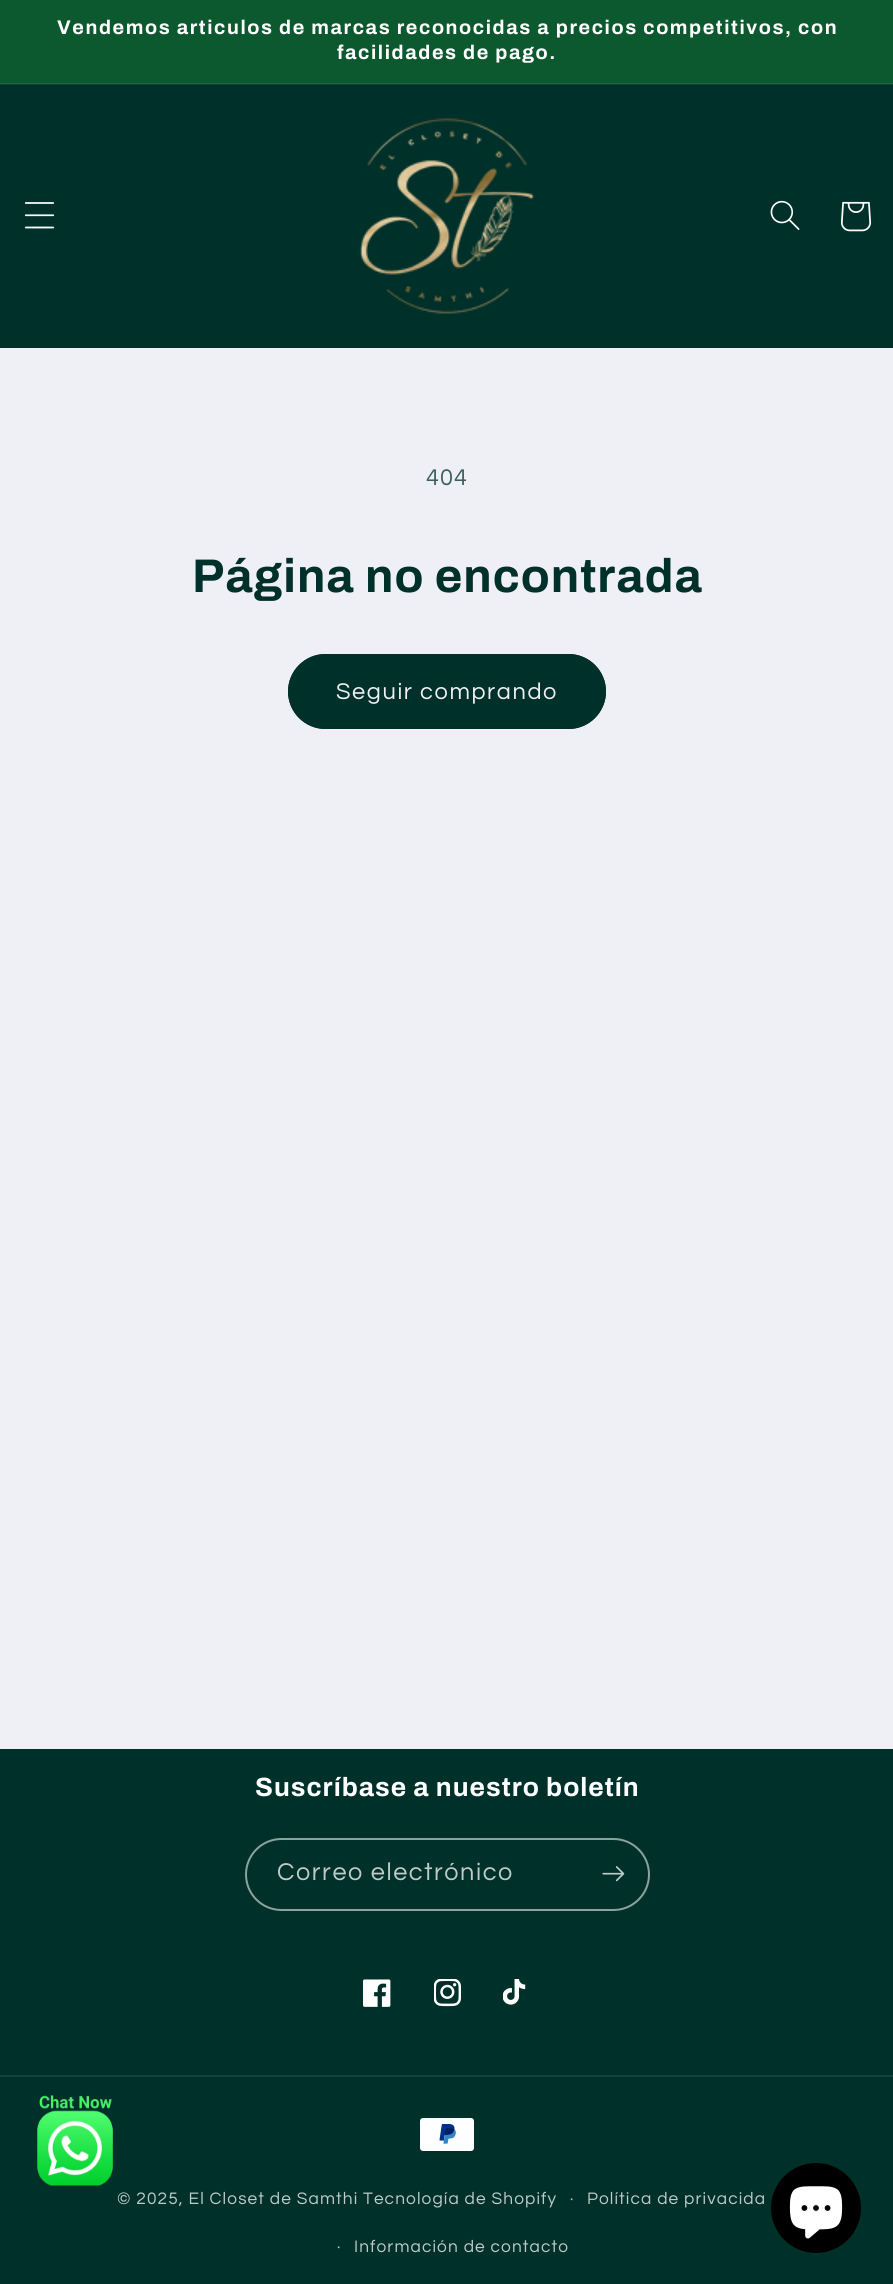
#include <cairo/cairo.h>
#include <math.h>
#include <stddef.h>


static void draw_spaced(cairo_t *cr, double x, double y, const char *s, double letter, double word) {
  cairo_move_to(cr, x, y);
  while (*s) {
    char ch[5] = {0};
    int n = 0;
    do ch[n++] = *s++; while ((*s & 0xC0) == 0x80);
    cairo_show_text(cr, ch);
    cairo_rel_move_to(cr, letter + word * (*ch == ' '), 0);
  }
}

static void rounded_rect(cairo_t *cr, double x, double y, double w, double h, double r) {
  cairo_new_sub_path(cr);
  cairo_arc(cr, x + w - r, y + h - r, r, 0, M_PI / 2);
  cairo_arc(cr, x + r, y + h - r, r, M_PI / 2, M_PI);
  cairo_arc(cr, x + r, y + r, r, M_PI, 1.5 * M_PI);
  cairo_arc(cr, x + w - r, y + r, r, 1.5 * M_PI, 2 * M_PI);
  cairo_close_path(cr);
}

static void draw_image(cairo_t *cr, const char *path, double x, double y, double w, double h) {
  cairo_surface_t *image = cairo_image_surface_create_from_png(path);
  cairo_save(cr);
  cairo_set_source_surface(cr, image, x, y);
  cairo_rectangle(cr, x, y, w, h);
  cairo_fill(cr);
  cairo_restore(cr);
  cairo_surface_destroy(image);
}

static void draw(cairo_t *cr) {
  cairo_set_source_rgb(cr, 239 / 255.0, 240 / 255.0, 245 / 255.0);
  cairo_paint(cr);
  cairo_set_source_rgb(cr, 13 / 255.0, 89 / 255.0, 47 / 255.0);
  cairo_rectangle(cr, 0, 0, 893, 83);
  cairo_fill(cr);
  cairo_set_source_rgb(cr, 32 / 255.0, 102 / 255.0, 64 / 255.0);
  cairo_rectangle(cr, 0, 83, 893, 1);
  cairo_fill(cr);
  cairo_set_source_rgb(cr, 0, 48 / 255.0, 42 / 255.0);
  cairo_rectangle(cr, 0, 85, 893, 263);
  cairo_fill(cr);
  cairo_set_source_rgb(cr, 20 / 255.0, 65 / 255.0, 59 / 255.0);
  cairo_rectangle(cr, 0, 84, 893, 1);
  cairo_fill(cr);
  draw_image(cr, "images/1.png", 24, 202, 31, 27);
  draw_image(cr, "images/2.png", 359, 118, 176, 196);
  draw_image(cr, "images/3.png", 770, 200, 30, 30);
  draw_image(cr, "images/4.png", 841, 201, 30, 31);
  cairo_set_source_rgb(cr, 0, 48 / 255.0, 42 / 255.0);
  rounded_rect(cr, 288, 654, 318, 75, 37.5);
  cairo_fill(cr);
  rounded_rect(cr, 289, 655, 316, 73, 36.5);
  cairo_stroke(cr);
  cairo_rectangle(cr, 0, 1749, 893, 535);
  cairo_fill(cr);
  draw_image(cr, "images/5.png", 37, 2095, 76, 91);
  rounded_rect(cr, 246, 1839, 403, 71, 35.5);
  cairo_set_source_rgb(cr, 140 / 255.0, 162 / 255.0, 159 / 255.0);
  cairo_stroke(cr);
  draw_image(cr, "images/6.png", 602, 1866, 23, 16);
  draw_image(cr, "images/7.png", 363, 1979, 28, 28);
  draw_image(cr, "images/8.png", 434, 1979, 27, 28);
  draw_image(cr, "images/9.png", 503, 1979, 23, 26);
  cairo_set_source_rgb(cr, 20 / 255.0, 65 / 255.0, 59 / 255.0);
  cairo_rectangle(cr, 0, 2075, 893, 2);
  cairo_fill(cr);
  draw_image(cr, "images/10.png", 420, 2118, 54, 33);
  cairo_set_source_rgb(cr, 0, 0, 0);
  cairo_arc(cr, 816, 2208, 45, 0, 2 * M_PI);
  cairo_fill(cr);
  draw_image(cr, "images/11.png", 789, 2186, 54, 53);
  cairo_select_font_face(cr, "Archivo", CAIRO_FONT_SLANT_NORMAL, CAIRO_FONT_WEIGHT_BOLD);
  cairo_set_font_size(cr, 19.8);
  cairo_set_source_rgb(cr, 1, 1, 1);
  draw_spaced(cr, 57, 34, "Vendemos articulos de marcas reconocidas a precios competitivos, con", 1.58, 0);
  draw_spaced(cr, 337, 59, "facilidades de pago.", 1.58, 0);
  cairo_select_font_face(cr, "Questrial", CAIRO_FONT_SLANT_NORMAL, CAIRO_FONT_WEIGHT_NORMAL);
  cairo_set_font_size(cr, 23.6);
  cairo_set_source_rgb(cr, 60 / 255.0, 96 / 255.0, 93 / 255.0);
  draw_spaced(cr, 426, 485, "404", 1, 0);
  cairo_select_font_face(cr, "Archivo", CAIRO_FONT_SLANT_NORMAL, CAIRO_FONT_WEIGHT_BOLD);
  cairo_set_font_size(cr, 47.25);
  cairo_set_source_rgb(cr, 0, 48 / 255.0, 42 / 255.0);
  draw_spaced(cr, 192, 592, "Página no encontrada", 1, 0);
  cairo_select_font_face(cr, "Questrial", CAIRO_FONT_SLANT_NORMAL, CAIRO_FONT_WEIGHT_NORMAL);
  cairo_set_font_size(cr, 23.6);
  cairo_set_source_rgb(cr, 239 / 255.0, 240 / 255.0, 245 / 255.0);
  draw_spaced(cr, 336, 699, "Seguir comprando", 1.58, 0);
  cairo_select_font_face(cr, "Archivo", CAIRO_FONT_SLANT_NORMAL, CAIRO_FONT_WEIGHT_BOLD);
  cairo_set_font_size(cr, 26.4);
  cairo_set_source_rgb(cr, 1, 1, 1);
  draw_spaced(cr, 255, 1796, "Suscríbase a nuestro boletín", 1, 0);
  cairo_select_font_face(cr, "Questrial", CAIRO_FONT_SLANT_NORMAL, CAIRO_FONT_WEIGHT_NORMAL);
  cairo_set_font_size(cr, 25.25);
  cairo_set_source_rgb(cr, 191 / 255.0, 203 / 255.0, 202 / 255.0);
  draw_spaced(cr, 277, 1880, "Correo electrónico", 1.58, 0);
  cairo_set_font_size(cr, 17.3);
  draw_spaced(cr, 117, 2204, "© 2025, El Closet de Samthi", 1.1, 0);
  cairo_set_font_size(cr, 16);
  draw_spaced(cr, 570, 2204, "·", 1.1, 0);
  cairo_set_font_size(cr, 17.3);
  draw_spaced(cr, 587, 2204, "Política de privacida", 1.1, 0);
  cairo_set_font_size(cr, 16);
  draw_spaced(cr, 337, 2252, "·", 1.1, 0);
  cairo_set_font_size(cr, 17.3);
  draw_spaced(cr, 354, 2252, "Información de contacto", 1.1, 0);
  draw_spaced(cr, 363, 2204, "Tecnología de Shopify", 1.1, 0);
}

int main(void) {
  cairo_surface_t *surface = cairo_image_surface_create(CAIRO_FORMAT_RGB24, 893, 2284);
  cairo_t *cr = cairo_create(surface);
  cairo_font_options_t *options = cairo_font_options_create();
  cairo_font_options_set_hint_metrics(options, CAIRO_HINT_METRICS_OFF);
  cairo_font_options_set_hint_style(options, CAIRO_HINT_STYLE_NONE);
  cairo_set_font_options(cr, options);
  cairo_set_miter_limit(cr, 4);
  draw(cr);
  cairo_surface_write_to_png(surface, "out.png");
  cairo_font_options_destroy(options);
  cairo_destroy(cr);
  cairo_surface_destroy(surface);
  return 0;
}
